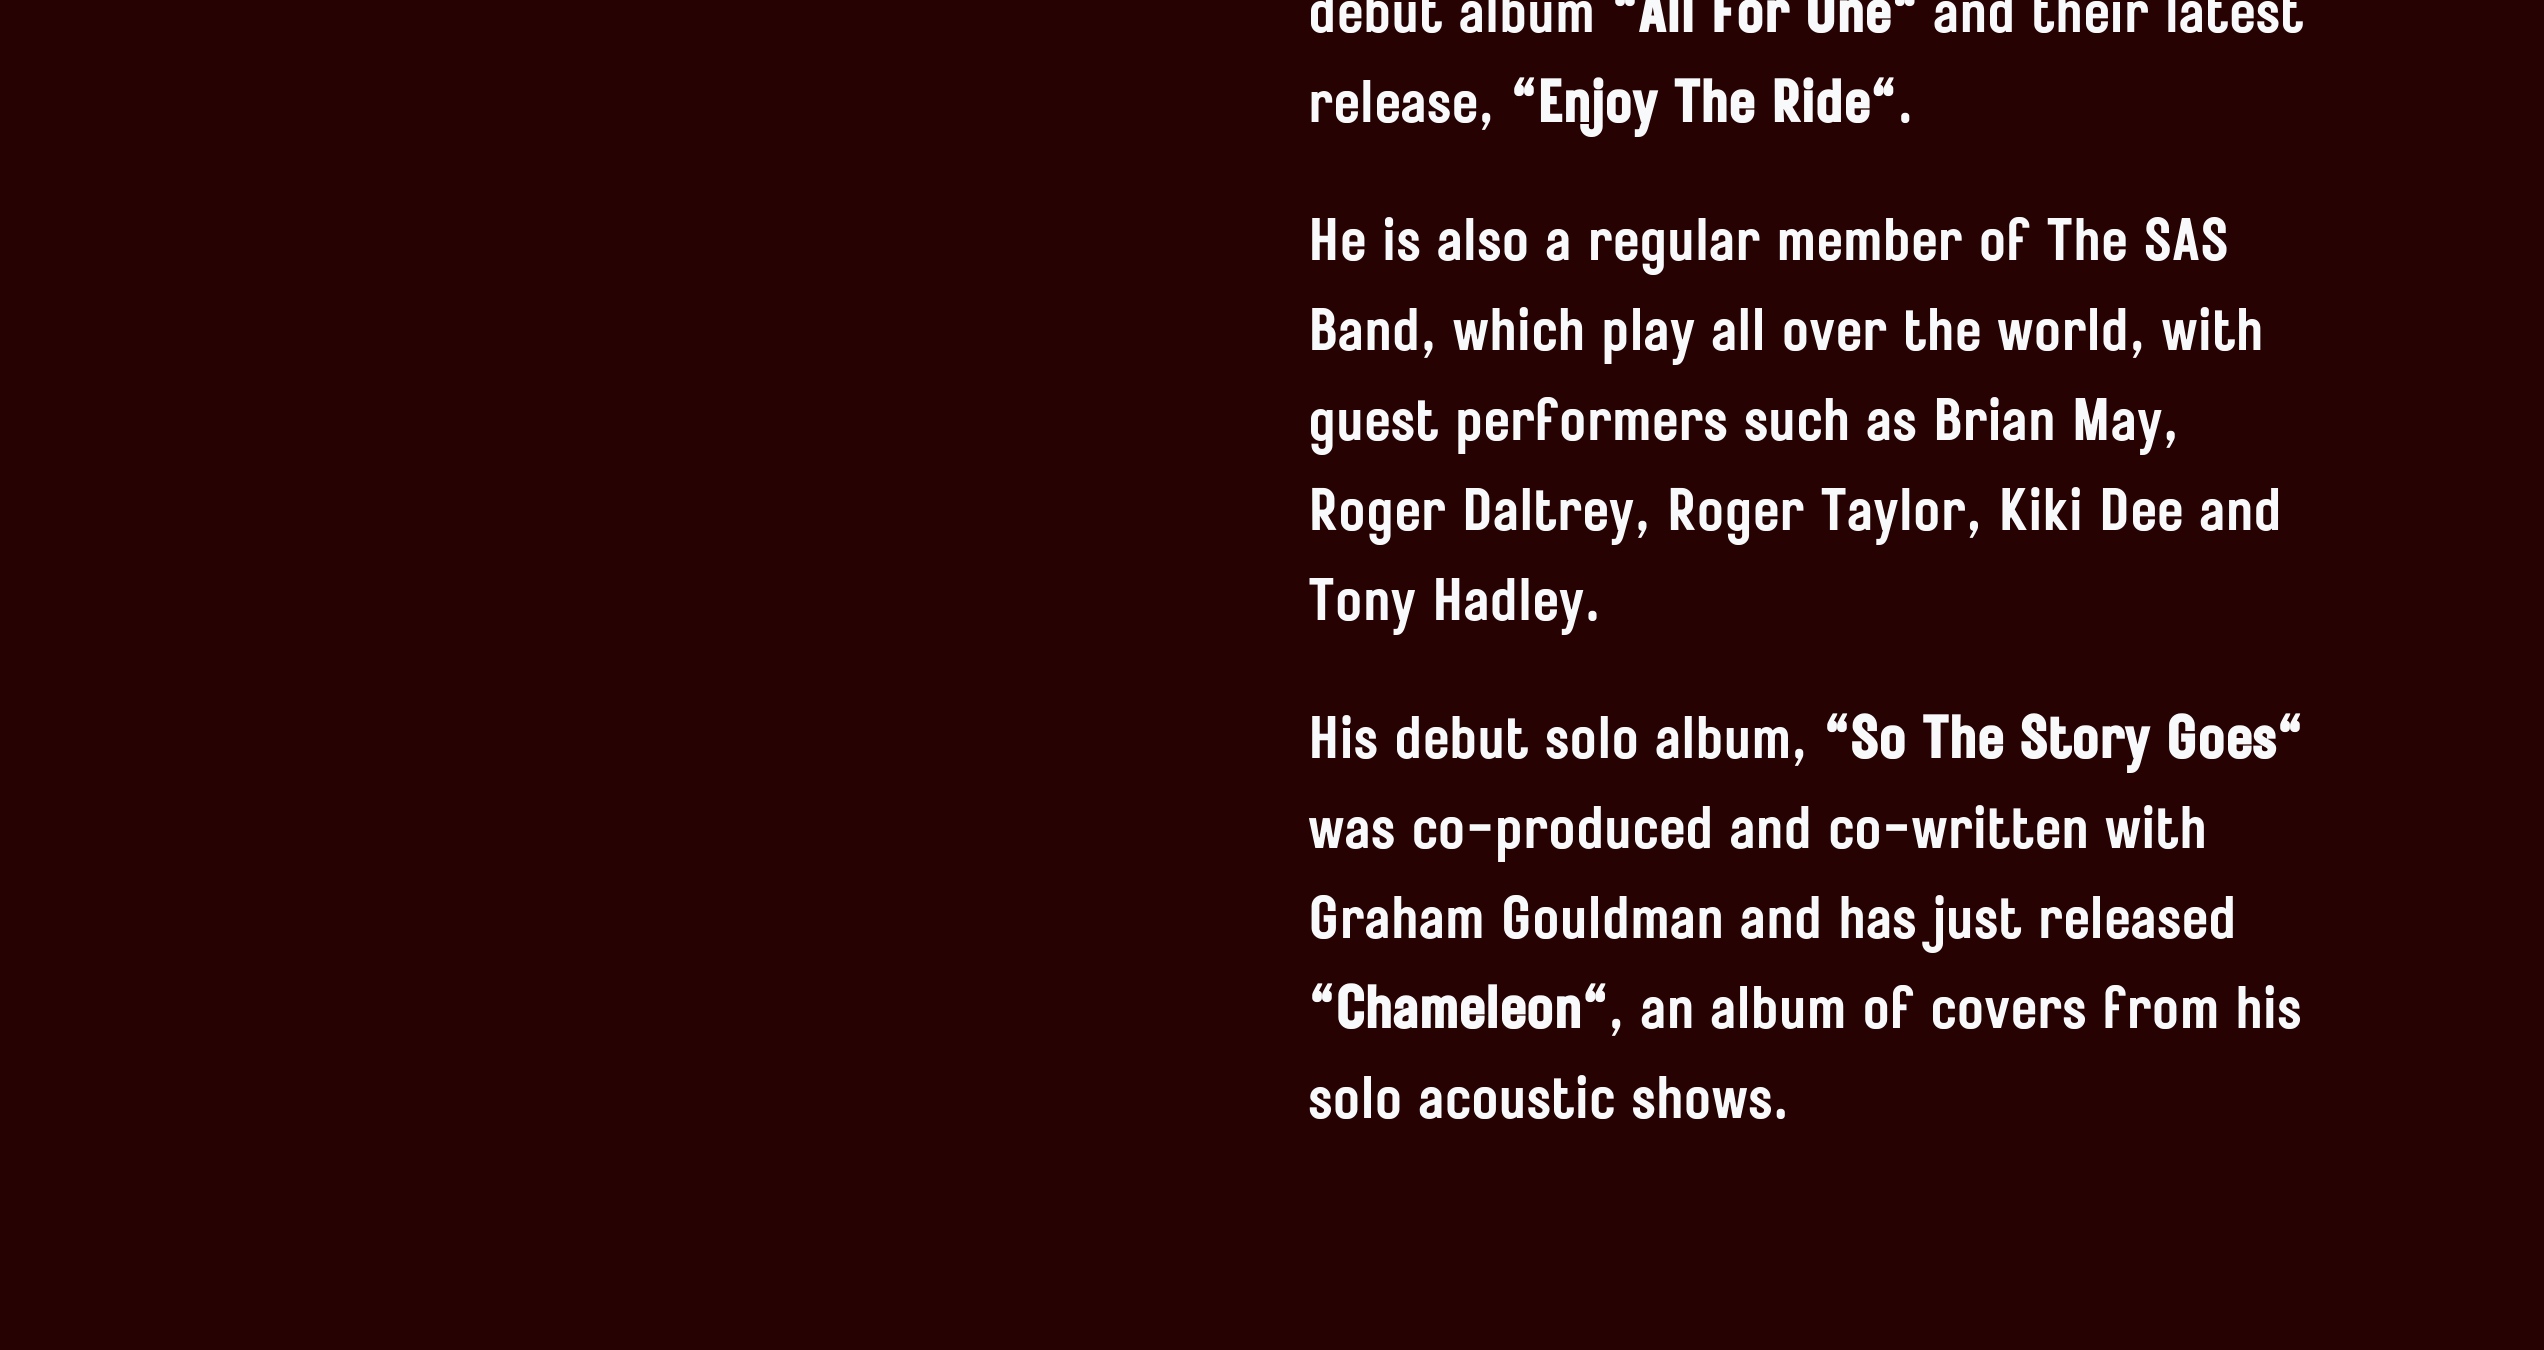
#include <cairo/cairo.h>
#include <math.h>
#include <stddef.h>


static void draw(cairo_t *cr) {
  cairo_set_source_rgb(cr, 38 / 255.0, 2 / 255.0, 2 / 255.0);
  cairo_paint(cr);
  cairo_select_font_face(cr, "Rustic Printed", CAIRO_FONT_SLANT_NORMAL, CAIRO_FONT_WEIGHT_NORMAL);
  cairo_set_font_size(cr, 60);
  cairo_set_source_rgb(cr, 248 / 255.0, 249 / 255.0, 250 / 255.0);
  cairo_move_to(cr, 1308, 32);
  cairo_show_text(cr, "debut album");
  cairo_select_font_face(cr, "Rustic Printed", CAIRO_FONT_SLANT_NORMAL, CAIRO_FONT_WEIGHT_BOLD);
  cairo_move_to(cr, 1611, 32);
  cairo_show_text(cr, "\"All For One\"");
  cairo_select_font_face(cr, "Rustic Printed", CAIRO_FONT_SLANT_NORMAL, CAIRO_FONT_WEIGHT_NORMAL);
  cairo_move_to(cr, 1933, 32);
  cairo_show_text(cr, "and their latest");
  cairo_move_to(cr, 1308, 122);
  cairo_show_text(cr, "release,");
  cairo_select_font_face(cr, "Rustic Printed", CAIRO_FONT_SLANT_NORMAL, CAIRO_FONT_WEIGHT_BOLD);
  cairo_move_to(cr, 1510, 122);
  cairo_show_text(cr, "\"Enjoy The Ride\"");
  cairo_select_font_face(cr, "Rustic Printed", CAIRO_FONT_SLANT_NORMAL, CAIRO_FONT_WEIGHT_NORMAL);
  cairo_move_to(cr, 1897, 122);
  cairo_show_text(cr, ".");
  cairo_move_to(cr, 1308, 260);
  cairo_show_text(cr, "He is also a regular member of The SAS");
  cairo_move_to(cr, 1308, 350);
  cairo_show_text(cr, "Band, which play all over the world, with");
  cairo_move_to(cr, 1308, 440);
  cairo_show_text(cr, "guest performers such as Brian May,");
  cairo_move_to(cr, 1308, 530);
  cairo_show_text(cr, "Roger Daltrey, Roger Taylor, Kiki Dee and");
  cairo_move_to(cr, 1308, 620);
  cairo_show_text(cr, "Tony Hadley.");
  cairo_move_to(cr, 1308, 758);
  cairo_show_text(cr, "His debut solo album,");
  cairo_select_font_face(cr, "Rustic Printed", CAIRO_FONT_SLANT_NORMAL, CAIRO_FONT_WEIGHT_BOLD);
  cairo_move_to(cr, 1823, 758);
  cairo_show_text(cr, "\"So The Story Goes\"");
  cairo_select_font_face(cr, "Rustic Printed", CAIRO_FONT_SLANT_NORMAL, CAIRO_FONT_WEIGHT_NORMAL);
  cairo_move_to(cr, 1308, 848);
  cairo_show_text(cr, "was co-produced and co-written with");
  cairo_move_to(cr, 1308, 938);
  cairo_show_text(cr, "Graham Gouldman and has just released");
  cairo_select_font_face(cr, "Rustic Printed", CAIRO_FONT_SLANT_NORMAL, CAIRO_FONT_WEIGHT_BOLD);
  cairo_move_to(cr, 1308, 1028);
  cairo_show_text(cr, "\"Chameleon\"");
  cairo_select_font_face(cr, "Rustic Printed", CAIRO_FONT_SLANT_NORMAL, CAIRO_FONT_WEIGHT_NORMAL);
  cairo_move_to(cr, 1608, 1028);
  cairo_show_text(cr, ", an album of covers from his");
  cairo_move_to(cr, 1308, 1118);
  cairo_show_text(cr, "solo acoustic shows.");
}

int main(void) {
  cairo_surface_t *surface = cairo_image_surface_create(CAIRO_FORMAT_RGB24, 2544, 1350);
  cairo_t *cr = cairo_create(surface);
  cairo_font_options_t *options = cairo_font_options_create();
  cairo_font_options_set_hint_metrics(options, CAIRO_HINT_METRICS_OFF);
  cairo_font_options_set_hint_style(options, CAIRO_HINT_STYLE_NONE);
  cairo_set_font_options(cr, options);
  cairo_set_miter_limit(cr, 4);
  draw(cr);
  cairo_surface_write_to_png(surface, "out.png");
  cairo_font_options_destroy(options);
  cairo_destroy(cr);
  cairo_surface_destroy(surface);
  return 0;
}
